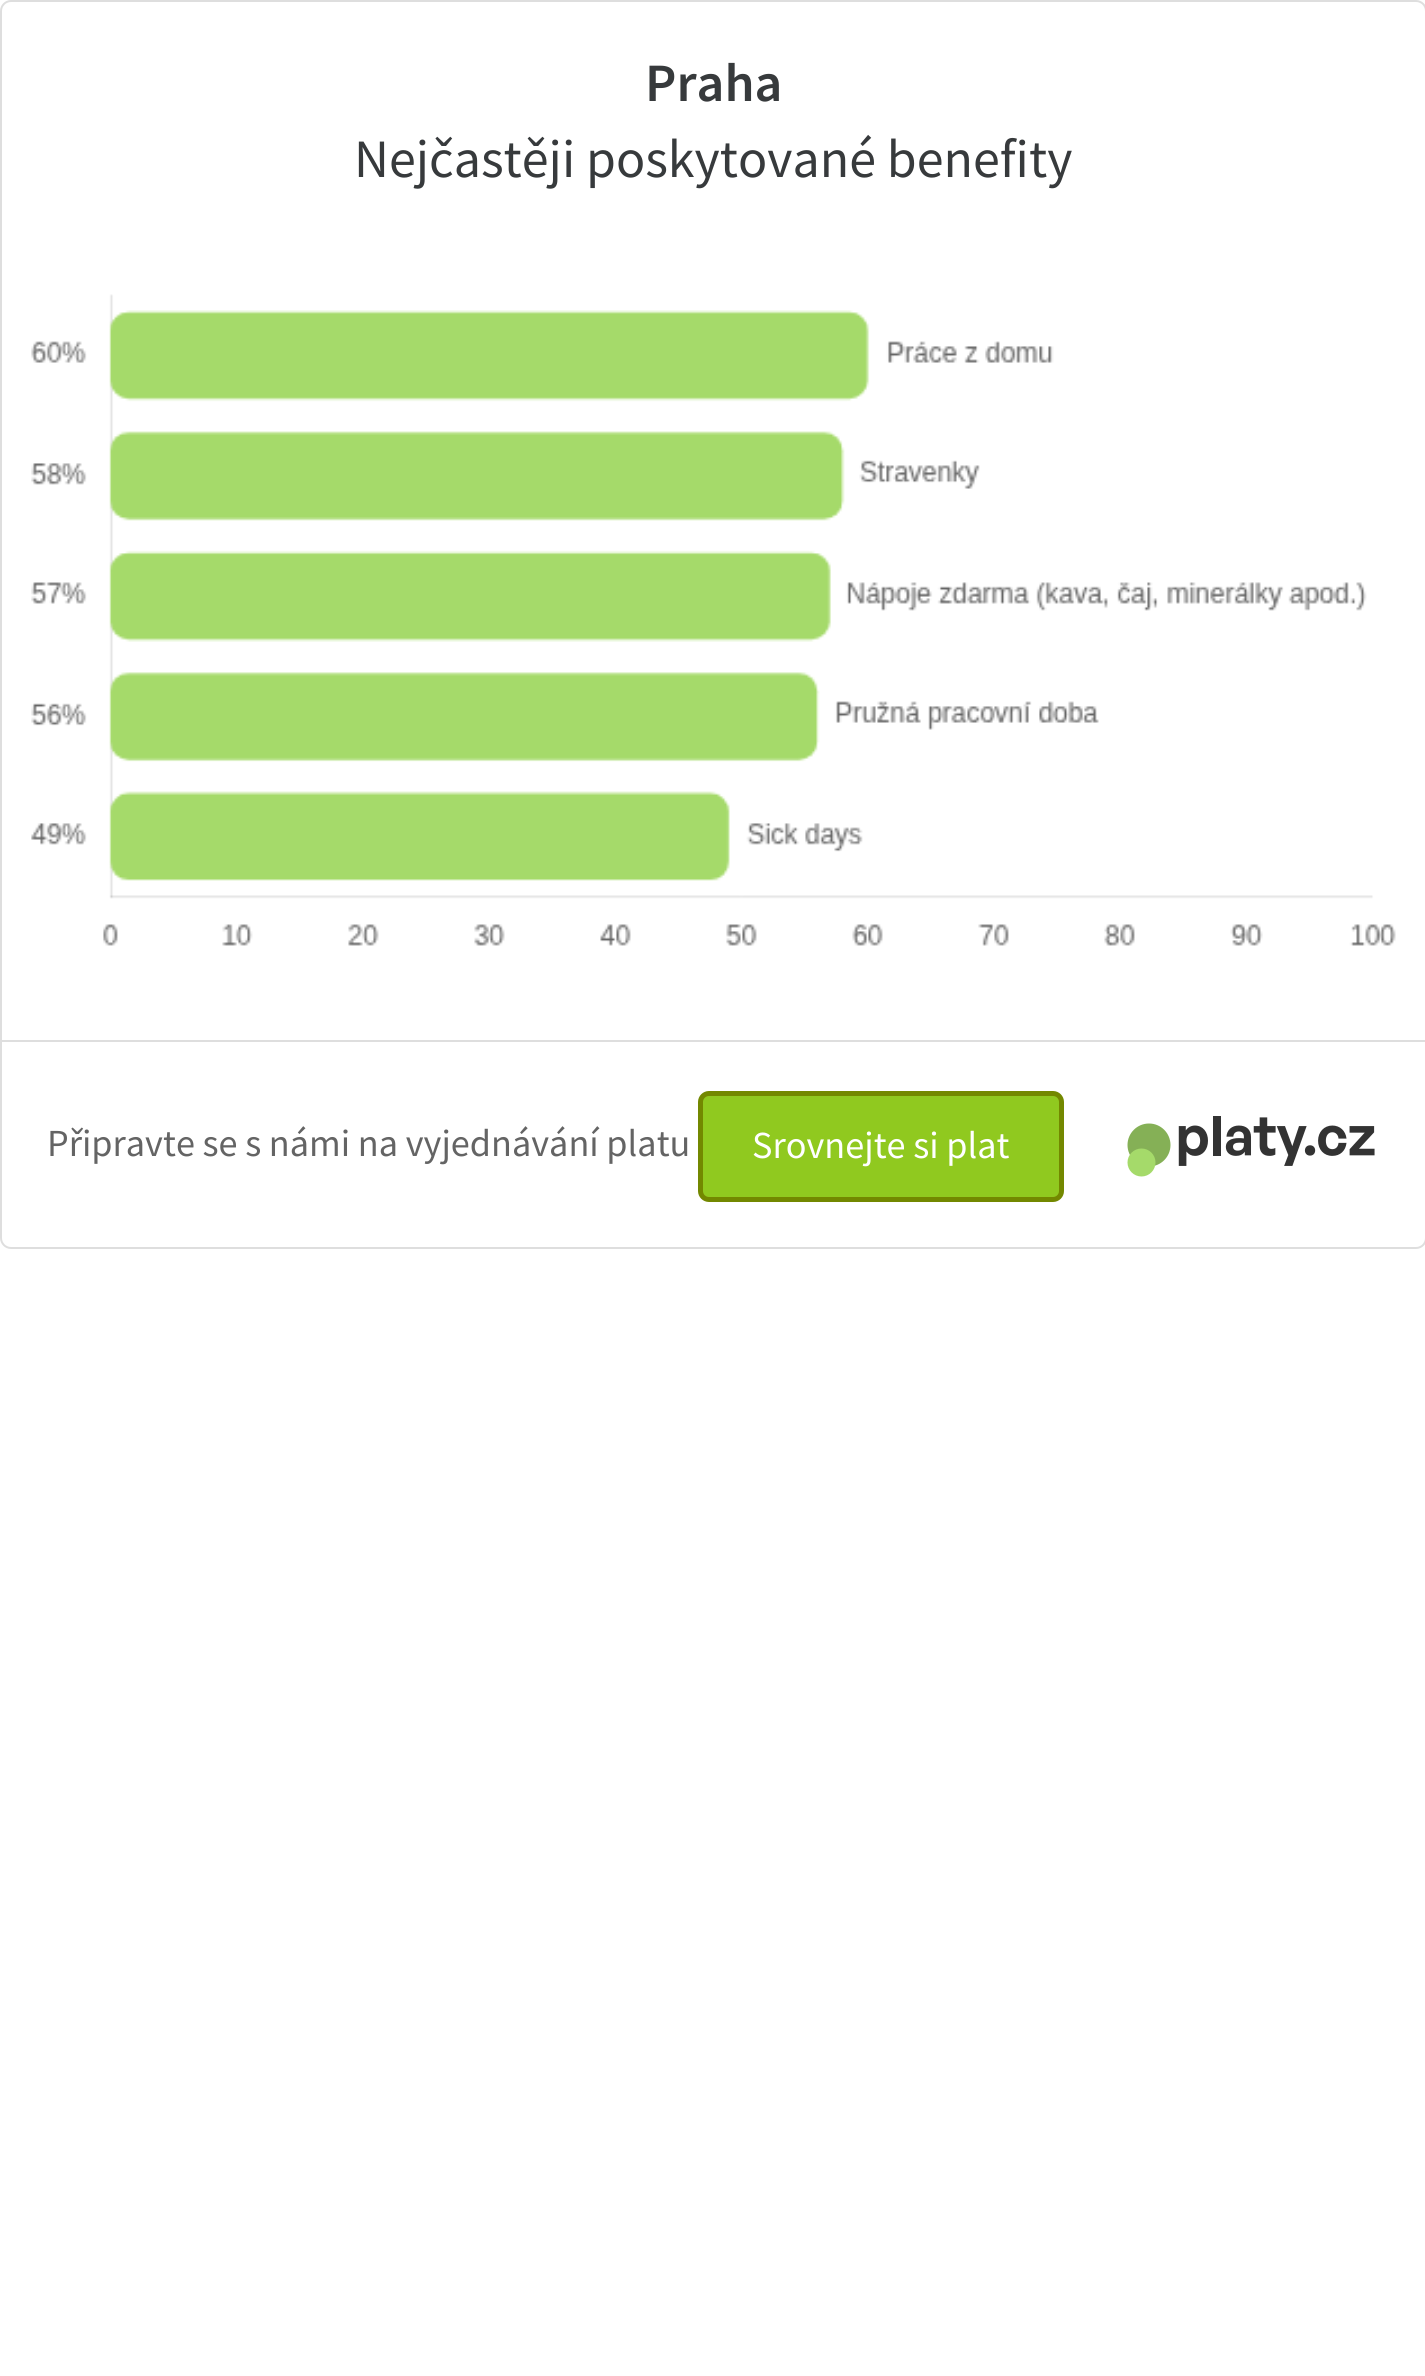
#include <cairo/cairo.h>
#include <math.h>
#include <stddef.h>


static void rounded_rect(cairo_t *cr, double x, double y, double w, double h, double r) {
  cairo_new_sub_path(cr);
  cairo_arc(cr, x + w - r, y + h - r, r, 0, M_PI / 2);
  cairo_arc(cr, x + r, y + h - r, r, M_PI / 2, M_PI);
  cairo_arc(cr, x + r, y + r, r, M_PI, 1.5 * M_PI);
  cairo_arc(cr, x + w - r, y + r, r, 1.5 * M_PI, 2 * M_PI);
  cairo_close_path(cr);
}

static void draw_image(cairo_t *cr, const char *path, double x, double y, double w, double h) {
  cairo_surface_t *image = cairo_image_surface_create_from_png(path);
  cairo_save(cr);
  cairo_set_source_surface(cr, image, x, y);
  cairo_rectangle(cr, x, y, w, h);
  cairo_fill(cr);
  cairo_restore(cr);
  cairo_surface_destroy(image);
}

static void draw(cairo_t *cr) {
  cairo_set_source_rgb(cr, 1, 1, 1);
  cairo_paint(cr);
  cairo_new_path(cr);
  cairo_move_to(cr, 11, 1);
  cairo_line_to(cr, 1416, 1);
  cairo_curve_to(cr, 1421.5, 1, 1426, 5.5, 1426, 11);
  cairo_line_to(cr, 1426, 1041);
  cairo_line_to(cr, 1, 1041);
  cairo_line_to(cr, 1, 11);
  cairo_curve_to(cr, 1, 5.5, 5.5, 1, 11, 1);
  cairo_close_path(cr);
  cairo_set_source_rgb(cr, 222 / 255.0, 222 / 255.0, 222 / 255.0);
  cairo_stroke(cr);
  draw_image(cr, "images/1.png", 31, 294, 1365, 652);
  cairo_new_path(cr);
  cairo_move_to(cr, 1, 1041);
  cairo_line_to(cr, 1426, 1041);
  cairo_line_to(cr, 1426, 1238);
  cairo_curve_to(cr, 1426, 1243.5, 1421.5, 1248, 1416, 1248);
  cairo_line_to(cr, 11, 1248);
  cairo_curve_to(cr, 5.5, 1248, 1, 1243.5, 1, 1238);
  cairo_close_path(cr);
  cairo_stroke(cr);
  cairo_set_source_rgb(cr, 144 / 255.0, 201 / 255.0, 31 / 255.0);
  rounded_rect(cr, 700.5, 1093.5, 361, 106, 8.5);
  cairo_fill_preserve(cr);
  cairo_set_source_rgb(cr, 115 / 255.0, 136 / 255.0, 0);
  cairo_set_line_width(cr, 5);
  cairo_stroke(cr);
  draw_image(cr, "images/2.png", 1127, 1116, 248, 61);
  cairo_select_font_face(cr, "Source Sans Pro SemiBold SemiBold", CAIRO_FONT_SLANT_NORMAL, CAIRO_FONT_WEIGHT_NORMAL);
  cairo_set_font_size(cr, 54);
  cairo_set_source_rgb(cr, 55 / 255.0, 58 / 255.0, 60 / 255.0);
  cairo_move_to(cr, 645, 101);
  cairo_show_text(cr, "Praha");
  cairo_select_font_face(cr, "Source Sans Pro", CAIRO_FONT_SLANT_NORMAL, CAIRO_FONT_WEIGHT_NORMAL);
  cairo_move_to(cr, 354, 177);
  cairo_show_text(cr, "Nejčastěji poskytované benefity");
  cairo_set_font_size(cr, 38.25);
  cairo_set_source_rgb(cr, 100 / 255.0, 100 / 255.0, 100 / 255.0);
  cairo_move_to(cr, 47, 1156);
  cairo_show_text(cr, "Připravte se s námi na vyjednávání platu");
  cairo_set_source_rgb(cr, 1, 1, 1);
  cairo_move_to(cr, 752, 1158);
  cairo_show_text(cr, "Srovnejte si plat");
}

int main(void) {
  cairo_surface_t *surface = cairo_image_surface_create(CAIRO_FORMAT_RGB24, 1425, 2376);
  cairo_t *cr = cairo_create(surface);
  cairo_font_options_t *options = cairo_font_options_create();
  cairo_font_options_set_hint_metrics(options, CAIRO_HINT_METRICS_OFF);
  cairo_font_options_set_hint_style(options, CAIRO_HINT_STYLE_NONE);
  cairo_set_font_options(cr, options);
  cairo_set_miter_limit(cr, 4);
  draw(cr);
  cairo_surface_write_to_png(surface, "out.png");
  cairo_font_options_destroy(options);
  cairo_destroy(cr);
  cairo_surface_destroy(surface);
  return 0;
}
